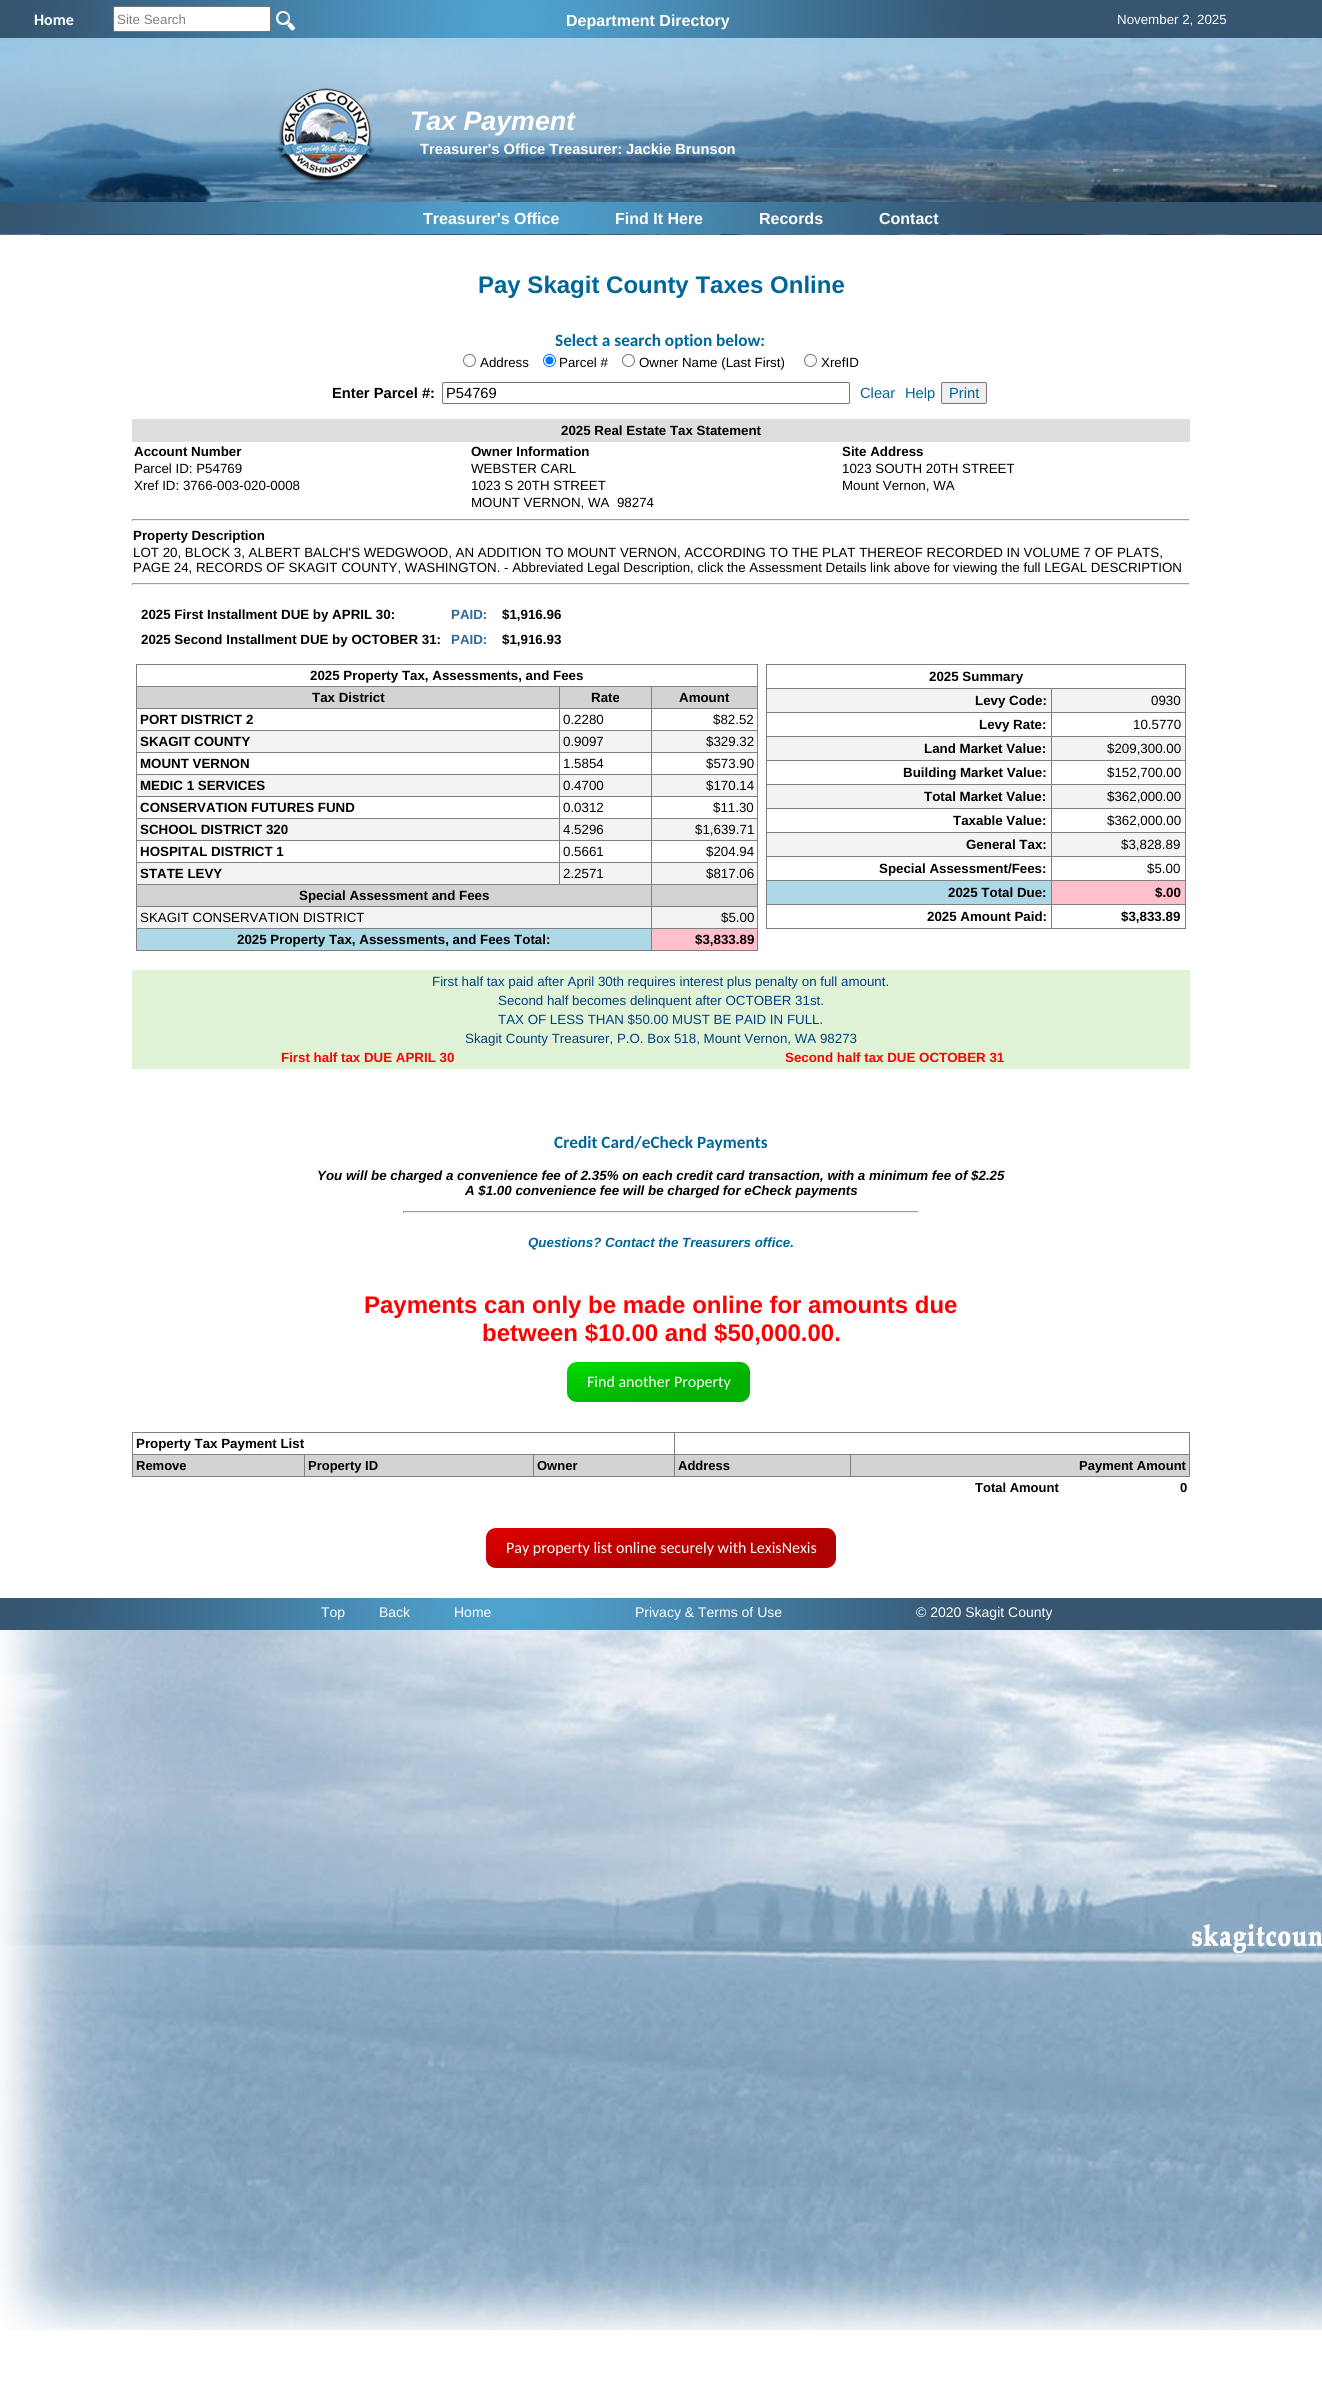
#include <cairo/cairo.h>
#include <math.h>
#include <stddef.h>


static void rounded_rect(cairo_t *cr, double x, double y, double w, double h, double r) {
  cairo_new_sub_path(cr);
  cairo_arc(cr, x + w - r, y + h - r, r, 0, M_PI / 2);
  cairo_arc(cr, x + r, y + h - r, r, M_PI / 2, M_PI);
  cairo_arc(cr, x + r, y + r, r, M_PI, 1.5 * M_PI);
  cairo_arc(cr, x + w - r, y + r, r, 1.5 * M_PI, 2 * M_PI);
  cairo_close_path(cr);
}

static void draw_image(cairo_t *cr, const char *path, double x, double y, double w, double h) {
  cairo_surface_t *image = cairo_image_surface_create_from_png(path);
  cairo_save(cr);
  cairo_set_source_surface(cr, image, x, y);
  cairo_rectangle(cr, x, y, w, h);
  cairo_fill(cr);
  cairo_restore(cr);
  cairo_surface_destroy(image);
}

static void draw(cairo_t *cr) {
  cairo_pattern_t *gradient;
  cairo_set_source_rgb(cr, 1, 1, 1);
  cairo_paint(cr);
  draw_image(cr, "images/1.png", 0, 1630, 1322, 700);
  draw_image(cr, "images/2.png", 0, 0, 1322, 38);
  cairo_set_source_rgb(cr, 1, 1, 1);
  rounded_rect(cr, 113.5, 6.5, 157, 25, 1.5);
  cairo_fill_preserve(cr);
  cairo_set_source_rgb(cr, 118 / 255.0, 118 / 255.0, 118 / 255.0);
  cairo_set_line_width(cr, 1);
  cairo_stroke(cr);
  draw_image(cr, "images/3.png", 276, 11, 20, 20);
  draw_image(cr, "images/4.png", 0, 38, 1322, 197);
  draw_image(cr, "images/5.png", 275, 88, 100, 95);
  draw_image(cr, "images/6.png", 0, 202, 1322, 32);
  cairo_arc(cr, 469.5, 360.5, 6, 0, 2 * M_PI);
  cairo_stroke(cr);
  cairo_arc(cr, 549.5, 360.5, 6, 0, 2 * M_PI);
  cairo_set_source_rgb(cr, 0, 117 / 255.0, 1);
  cairo_stroke(cr);
  cairo_arc(cr, 549.5, 360.5, 4, 0, 2 * M_PI);
  cairo_fill(cr);
  cairo_arc(cr, 628.5, 360.5, 6, 0, 2 * M_PI);
  cairo_set_source_rgb(cr, 118 / 255.0, 118 / 255.0, 118 / 255.0);
  cairo_stroke(cr);
  cairo_arc(cr, 810.5, 360.5, 6, 0, 2 * M_PI);
  cairo_stroke(cr);
  rounded_rect(cr, 442.5, 382.5, 407, 21, 1.5);
  cairo_stroke(cr);
  cairo_set_source_rgb(cr, 239 / 255.0, 239 / 255.0, 239 / 255.0);
  rounded_rect(cr, 941.5, 382.5, 45, 21, 1.5);
  cairo_fill_preserve(cr);
  cairo_set_source_rgb(cr, 118 / 255.0, 118 / 255.0, 118 / 255.0);
  cairo_stroke(cr);
  cairo_set_source_rgb(cr, 221 / 255.0, 221 / 255.0, 221 / 255.0);
  cairo_rectangle(cr, 132, 419, 1058, 23);
  cairo_fill(cr);
  cairo_set_source_rgb(cr, 159 / 255.0, 159 / 255.0, 159 / 255.0);
  cairo_rectangle(cr, 132, 519, 1058, 1);
  cairo_fill(cr);
  cairo_set_source_rgb(cr, 238 / 255.0, 238 / 255.0, 238 / 255.0);
  cairo_rectangle(cr, 1189, 519, 1, 2);
  cairo_fill(cr);
  cairo_rectangle(cr, 132, 520, 1058, 1);
  cairo_fill(cr);
  cairo_set_source_rgb(cr, 159 / 255.0, 159 / 255.0, 159 / 255.0);
  cairo_rectangle(cr, 132, 519, 1, 2);
  cairo_fill(cr);
  cairo_rectangle(cr, 132, 583, 1058, 1);
  cairo_fill(cr);
  cairo_set_source_rgb(cr, 238 / 255.0, 238 / 255.0, 238 / 255.0);
  cairo_rectangle(cr, 1189, 583, 1, 2);
  cairo_fill(cr);
  cairo_rectangle(cr, 132, 584, 1058, 1);
  cairo_fill(cr);
  cairo_set_source_rgb(cr, 159 / 255.0, 159 / 255.0, 159 / 255.0);
  cairo_rectangle(cr, 132, 583, 1, 2);
  cairo_fill(cr);
  cairo_set_source_rgb(cr, 128 / 255.0, 128 / 255.0, 128 / 255.0);
  cairo_rectangle(cr, 136, 664, 622, 1);
  cairo_fill(cr);
  cairo_rectangle(cr, 757, 664, 1, 287);
  cairo_fill(cr);
  cairo_rectangle(cr, 136, 950, 622, 1);
  cairo_fill(cr);
  cairo_rectangle(cr, 136, 664, 1, 287);
  cairo_fill(cr);
  cairo_set_source_rgb(cr, 211 / 255.0, 211 / 255.0, 211 / 255.0);
  cairo_rectangle(cr, 137, 687, 422, 21);
  cairo_fill(cr);
  cairo_set_source_rgb(cr, 128 / 255.0, 128 / 255.0, 128 / 255.0);
  cairo_rectangle(cr, 651, 686, 107, 1);
  cairo_fill(cr);
  cairo_rectangle(cr, 651, 708, 107, 1);
  cairo_fill(cr);
  cairo_rectangle(cr, 651, 730, 107, 1);
  cairo_fill(cr);
  cairo_set_source_rgb(cr, 243 / 255.0, 243 / 255.0, 243 / 255.0);
  cairo_rectangle(cr, 137, 731, 620, 21);
  cairo_fill(cr);
  cairo_set_source_rgb(cr, 128 / 255.0, 128 / 255.0, 128 / 255.0);
  cairo_rectangle(cr, 651, 752, 107, 1);
  cairo_fill(cr);
  cairo_rectangle(cr, 651, 774, 107, 1);
  cairo_fill(cr);
  cairo_set_source_rgb(cr, 243 / 255.0, 243 / 255.0, 243 / 255.0);
  cairo_rectangle(cr, 137, 775, 620, 21);
  cairo_fill(cr);
  cairo_set_source_rgb(cr, 128 / 255.0, 128 / 255.0, 128 / 255.0);
  cairo_rectangle(cr, 651, 796, 107, 1);
  cairo_fill(cr);
  cairo_rectangle(cr, 651, 818, 107, 1);
  cairo_fill(cr);
  cairo_set_source_rgb(cr, 243 / 255.0, 243 / 255.0, 243 / 255.0);
  cairo_rectangle(cr, 137, 819, 620, 21);
  cairo_fill(cr);
  cairo_set_source_rgb(cr, 128 / 255.0, 128 / 255.0, 128 / 255.0);
  cairo_rectangle(cr, 651, 840, 107, 1);
  cairo_fill(cr);
  cairo_rectangle(cr, 651, 862, 107, 1);
  cairo_fill(cr);
  cairo_set_source_rgb(cr, 243 / 255.0, 243 / 255.0, 243 / 255.0);
  cairo_rectangle(cr, 137, 863, 620, 21);
  cairo_fill(cr);
  cairo_set_source_rgb(cr, 128 / 255.0, 128 / 255.0, 128 / 255.0);
  cairo_rectangle(cr, 651, 884, 107, 1);
  cairo_fill(cr);
  cairo_rectangle(cr, 651, 906, 107, 1);
  cairo_fill(cr);
  cairo_set_source_rgb(cr, 243 / 255.0, 243 / 255.0, 243 / 255.0);
  cairo_rectangle(cr, 137, 907, 620, 21);
  cairo_fill(cr);
  cairo_set_source_rgb(cr, 128 / 255.0, 128 / 255.0, 128 / 255.0);
  cairo_rectangle(cr, 651, 928, 107, 1);
  cairo_fill(cr);
  cairo_rectangle(cr, 651, 928, 1, 23);
  cairo_fill(cr);
  cairo_rectangle(cr, 136, 928, 516, 1);
  cairo_fill(cr);
  cairo_rectangle(cr, 651, 906, 1, 23);
  cairo_fill(cr);
  cairo_rectangle(cr, 136, 906, 516, 1);
  cairo_fill(cr);
  cairo_rectangle(cr, 651, 884, 1, 23);
  cairo_fill(cr);
  cairo_rectangle(cr, 136, 884, 516, 1);
  cairo_fill(cr);
  cairo_rectangle(cr, 651, 862, 1, 23);
  cairo_fill(cr);
  cairo_rectangle(cr, 559, 862, 93, 1);
  cairo_fill(cr);
  cairo_rectangle(cr, 651, 840, 1, 23);
  cairo_fill(cr);
  cairo_rectangle(cr, 559, 840, 93, 1);
  cairo_fill(cr);
  cairo_rectangle(cr, 651, 818, 1, 23);
  cairo_fill(cr);
  cairo_rectangle(cr, 559, 818, 93, 1);
  cairo_fill(cr);
  cairo_rectangle(cr, 651, 796, 1, 23);
  cairo_fill(cr);
  cairo_rectangle(cr, 559, 796, 93, 1);
  cairo_fill(cr);
  cairo_rectangle(cr, 651, 774, 1, 23);
  cairo_fill(cr);
  cairo_rectangle(cr, 559, 774, 93, 1);
  cairo_fill(cr);
  cairo_rectangle(cr, 651, 752, 1, 23);
  cairo_fill(cr);
  cairo_rectangle(cr, 559, 752, 93, 1);
  cairo_fill(cr);
  cairo_rectangle(cr, 651, 730, 1, 23);
  cairo_fill(cr);
  cairo_rectangle(cr, 559, 730, 93, 1);
  cairo_fill(cr);
  cairo_rectangle(cr, 651, 708, 1, 23);
  cairo_fill(cr);
  cairo_rectangle(cr, 559, 708, 93, 1);
  cairo_fill(cr);
  cairo_rectangle(cr, 651, 686, 1, 23);
  cairo_fill(cr);
  cairo_rectangle(cr, 559, 686, 93, 1);
  cairo_fill(cr);
  cairo_rectangle(cr, 559, 862, 1, 23);
  cairo_fill(cr);
  cairo_rectangle(cr, 136, 862, 424, 1);
  cairo_fill(cr);
  cairo_rectangle(cr, 559, 840, 1, 23);
  cairo_fill(cr);
  cairo_rectangle(cr, 136, 840, 424, 1);
  cairo_fill(cr);
  cairo_rectangle(cr, 559, 818, 1, 23);
  cairo_fill(cr);
  cairo_rectangle(cr, 136, 818, 424, 1);
  cairo_fill(cr);
  cairo_rectangle(cr, 559, 796, 1, 23);
  cairo_fill(cr);
  cairo_rectangle(cr, 136, 796, 424, 1);
  cairo_fill(cr);
  cairo_rectangle(cr, 559, 774, 1, 23);
  cairo_fill(cr);
  cairo_rectangle(cr, 136, 774, 424, 1);
  cairo_fill(cr);
  cairo_rectangle(cr, 559, 752, 1, 23);
  cairo_fill(cr);
  cairo_rectangle(cr, 136, 752, 424, 1);
  cairo_fill(cr);
  cairo_rectangle(cr, 559, 730, 1, 23);
  cairo_fill(cr);
  cairo_rectangle(cr, 136, 730, 424, 1);
  cairo_fill(cr);
  cairo_rectangle(cr, 559, 708, 1, 23);
  cairo_fill(cr);
  cairo_rectangle(cr, 136, 708, 424, 1);
  cairo_fill(cr);
  cairo_rectangle(cr, 559, 686, 1, 23);
  cairo_fill(cr);
  cairo_rectangle(cr, 136, 686, 424, 1);
  cairo_fill(cr);
  cairo_set_source_rgb(cr, 211 / 255.0, 211 / 255.0, 211 / 255.0);
  cairo_rectangle(cr, 560, 687, 91, 21);
  cairo_fill(cr);
  cairo_rectangle(cr, 652, 687, 105, 21);
  cairo_fill(cr);
  cairo_rectangle(cr, 137, 885, 514, 21);
  cairo_fill(cr);
  cairo_rectangle(cr, 652, 885, 105, 21);
  cairo_fill(cr);
  cairo_set_source_rgb(cr, 173 / 255.0, 216 / 255.0, 230 / 255.0);
  cairo_rectangle(cr, 137, 929, 514, 21);
  cairo_fill(cr);
  cairo_set_source_rgb(cr, 1, 192 / 255.0, 203 / 255.0);
  cairo_rectangle(cr, 652, 929, 105, 21);
  cairo_fill(cr);
  cairo_set_source_rgb(cr, 128 / 255.0, 128 / 255.0, 128 / 255.0);
  cairo_rectangle(cr, 766, 664, 420, 1);
  cairo_fill(cr);
  cairo_rectangle(cr, 1185, 664, 1, 265);
  cairo_fill(cr);
  cairo_rectangle(cr, 766, 928, 420, 1);
  cairo_fill(cr);
  cairo_rectangle(cr, 766, 664, 1, 265);
  cairo_fill(cr);
  cairo_set_source_rgb(cr, 243 / 255.0, 243 / 255.0, 243 / 255.0);
  cairo_rectangle(cr, 767, 689, 418, 23);
  cairo_fill(cr);
  cairo_set_source_rgb(cr, 128 / 255.0, 128 / 255.0, 128 / 255.0);
  cairo_rectangle(cr, 1051, 688, 135, 1);
  cairo_fill(cr);
  cairo_rectangle(cr, 1051, 712, 135, 1);
  cairo_fill(cr);
  cairo_rectangle(cr, 1051, 736, 135, 1);
  cairo_fill(cr);
  cairo_set_source_rgb(cr, 243 / 255.0, 243 / 255.0, 243 / 255.0);
  cairo_rectangle(cr, 767, 737, 418, 23);
  cairo_fill(cr);
  cairo_set_source_rgb(cr, 128 / 255.0, 128 / 255.0, 128 / 255.0);
  cairo_rectangle(cr, 1051, 760, 135, 1);
  cairo_fill(cr);
  cairo_rectangle(cr, 1051, 784, 135, 1);
  cairo_fill(cr);
  cairo_set_source_rgb(cr, 243 / 255.0, 243 / 255.0, 243 / 255.0);
  cairo_rectangle(cr, 767, 785, 418, 23);
  cairo_fill(cr);
  cairo_set_source_rgb(cr, 128 / 255.0, 128 / 255.0, 128 / 255.0);
  cairo_rectangle(cr, 1051, 808, 135, 1);
  cairo_fill(cr);
  cairo_rectangle(cr, 1051, 832, 135, 1);
  cairo_fill(cr);
  cairo_set_source_rgb(cr, 243 / 255.0, 243 / 255.0, 243 / 255.0);
  cairo_rectangle(cr, 767, 833, 418, 23);
  cairo_fill(cr);
  cairo_set_source_rgb(cr, 128 / 255.0, 128 / 255.0, 128 / 255.0);
  cairo_rectangle(cr, 1051, 856, 135, 1);
  cairo_fill(cr);
  cairo_rectangle(cr, 1051, 880, 135, 1);
  cairo_fill(cr);
  cairo_rectangle(cr, 1051, 904, 135, 1);
  cairo_fill(cr);
  cairo_rectangle(cr, 1051, 904, 1, 25);
  cairo_fill(cr);
  cairo_rectangle(cr, 766, 904, 286, 1);
  cairo_fill(cr);
  cairo_rectangle(cr, 1051, 880, 1, 25);
  cairo_fill(cr);
  cairo_rectangle(cr, 766, 880, 286, 1);
  cairo_fill(cr);
  cairo_rectangle(cr, 1051, 856, 1, 25);
  cairo_fill(cr);
  cairo_rectangle(cr, 766, 856, 286, 1);
  cairo_fill(cr);
  cairo_rectangle(cr, 1051, 832, 1, 25);
  cairo_fill(cr);
  cairo_rectangle(cr, 766, 832, 286, 1);
  cairo_fill(cr);
  cairo_rectangle(cr, 1051, 808, 1, 25);
  cairo_fill(cr);
  cairo_rectangle(cr, 766, 808, 286, 1);
  cairo_fill(cr);
  cairo_rectangle(cr, 1051, 784, 1, 25);
  cairo_fill(cr);
  cairo_rectangle(cr, 766, 784, 286, 1);
  cairo_fill(cr);
  cairo_rectangle(cr, 1051, 760, 1, 25);
  cairo_fill(cr);
  cairo_rectangle(cr, 766, 760, 286, 1);
  cairo_fill(cr);
  cairo_rectangle(cr, 1051, 736, 1, 25);
  cairo_fill(cr);
  cairo_rectangle(cr, 766, 736, 286, 1);
  cairo_fill(cr);
  cairo_rectangle(cr, 1051, 712, 1, 25);
  cairo_fill(cr);
  cairo_rectangle(cr, 766, 712, 286, 1);
  cairo_fill(cr);
  cairo_rectangle(cr, 1051, 688, 1, 25);
  cairo_fill(cr);
  cairo_rectangle(cr, 766, 688, 286, 1);
  cairo_fill(cr);
  cairo_set_source_rgb(cr, 173 / 255.0, 216 / 255.0, 230 / 255.0);
  cairo_rectangle(cr, 767, 881, 284, 23);
  cairo_fill(cr);
  cairo_set_source_rgb(cr, 1, 192 / 255.0, 203 / 255.0);
  cairo_rectangle(cr, 1052, 881, 133, 23);
  cairo_fill(cr);
  cairo_set_source_rgb(cr, 224 / 255.0, 243 / 255.0, 214 / 255.0);
  cairo_rectangle(cr, 132, 970, 1058, 99);
  cairo_fill(cr);
  cairo_set_source_rgb(cr, 159 / 255.0, 159 / 255.0, 159 / 255.0);
  cairo_rectangle(cr, 403, 1211, 516, 1);
  cairo_fill(cr);
  cairo_set_source_rgb(cr, 238 / 255.0, 238 / 255.0, 238 / 255.0);
  cairo_rectangle(cr, 918, 1211, 1, 2);
  cairo_fill(cr);
  cairo_rectangle(cr, 403, 1212, 516, 1);
  cairo_fill(cr);
  cairo_set_source_rgb(cr, 159 / 255.0, 159 / 255.0, 159 / 255.0);
  cairo_rectangle(cr, 403, 1211, 1, 2);
  cairo_fill(cr);
  cairo_set_source_rgb(cr, 0, 220 / 255.0, 0);
  rounded_rect(cr, 567, 1362, 183, 40, 10);
  cairo_fill(cr);
  gradient = cairo_pattern_create_linear(667, 1420, 650, 1344);
  cairo_pattern_add_color_stop_rgba(gradient, 0, 0, 0, 0, 0.2);
  cairo_pattern_add_color_stop_rgba(gradient, 0.3, 0, 0, 0, 0.2);
  cairo_pattern_add_color_stop_rgba(gradient, 1, 0, 0, 0, 0);
  cairo_set_source(cr, gradient);
  cairo_pattern_destroy(gradient);
  rounded_rect(cr, 567, 1362, 183, 40, 10);
  cairo_fill(cr);
  cairo_set_source_rgb(cr, 128 / 255.0, 128 / 255.0, 128 / 255.0);
  cairo_rectangle(cr, 132, 1432, 1058, 1);
  cairo_fill(cr);
  cairo_rectangle(cr, 1189, 1432, 1, 45);
  cairo_fill(cr);
  cairo_rectangle(cr, 132, 1476, 1058, 1);
  cairo_fill(cr);
  cairo_rectangle(cr, 132, 1432, 1, 45);
  cairo_fill(cr);
  cairo_rectangle(cr, 850, 1454, 340, 1);
  cairo_fill(cr);
  cairo_rectangle(cr, 850, 1454, 1, 23);
  cairo_fill(cr);
  cairo_rectangle(cr, 674, 1454, 177, 1);
  cairo_fill(cr);
  cairo_rectangle(cr, 674, 1454, 1, 23);
  cairo_fill(cr);
  cairo_rectangle(cr, 533, 1454, 142, 1);
  cairo_fill(cr);
  cairo_rectangle(cr, 674, 1432, 1, 23);
  cairo_fill(cr);
  cairo_set_source_rgb(cr, 211 / 255.0, 211 / 255.0, 211 / 255.0);
  cairo_rectangle(cr, 133, 1455, 171, 21);
  cairo_fill(cr);
  cairo_set_source_rgb(cr, 128 / 255.0, 128 / 255.0, 128 / 255.0);
  cairo_rectangle(cr, 533, 1454, 1, 23);
  cairo_fill(cr);
  cairo_rectangle(cr, 304, 1454, 230, 1);
  cairo_fill(cr);
  cairo_rectangle(cr, 304, 1454, 1, 23);
  cairo_fill(cr);
  cairo_rectangle(cr, 132, 1454, 173, 1);
  cairo_fill(cr);
  cairo_set_source_rgb(cr, 211 / 255.0, 211 / 255.0, 211 / 255.0);
  cairo_rectangle(cr, 305, 1455, 228, 21);
  cairo_fill(cr);
  cairo_rectangle(cr, 534, 1455, 140, 21);
  cairo_fill(cr);
  cairo_rectangle(cr, 675, 1455, 175, 21);
  cairo_fill(cr);
  cairo_rectangle(cr, 851, 1455, 338, 21);
  cairo_fill(cr);
  cairo_set_source_rgb(cr, 220 / 255.0, 0, 0);
  rounded_rect(cr, 486, 1528, 350, 40, 10);
  cairo_fill(cr);
  gradient = cairo_pattern_create_linear(666, 1587, 656, 1509);
  cairo_pattern_add_color_stop_rgba(gradient, 0, 0, 0, 0, 0.2);
  cairo_pattern_add_color_stop_rgba(gradient, 0.3, 0, 0, 0, 0.2);
  cairo_pattern_add_color_stop_rgba(gradient, 1, 0, 0, 0, 0);
  cairo_set_source(cr, gradient);
  cairo_pattern_destroy(gradient);
  rounded_rect(cr, 486, 1528, 350, 40, 10);
  cairo_fill(cr);
  draw_image(cr, "images/7.png", 0, 1598, 1322, 32);
  cairo_select_font_face(cr, "Carlito", CAIRO_FONT_SLANT_NORMAL, CAIRO_FONT_WEIGHT_BOLD);
  cairo_set_font_size(cr, 16);
  cairo_set_source_rgb(cr, 1, 1, 1);
  cairo_move_to(cr, 34, 25);
  cairo_show_text(cr, "Home");
  cairo_select_font_face(cr, "Liberation Sans", CAIRO_FONT_SLANT_NORMAL, CAIRO_FONT_WEIGHT_NORMAL);
  cairo_set_font_size(cr, 13.33);
  cairo_set_source_rgb(cr, 128 / 255.0, 128 / 255.0, 128 / 255.0);
  cairo_move_to(cr, 117, 24);
  cairo_show_text(cr, "Site Search");
  cairo_select_font_face(cr, "Liberation Sans", CAIRO_FONT_SLANT_NORMAL, CAIRO_FONT_WEIGHT_BOLD);
  cairo_set_font_size(cr, 16);
  cairo_set_source_rgb(cr, 1, 1, 1);
  cairo_move_to(cr, 566, 26);
  cairo_show_text(cr, "Department Directory");
  cairo_select_font_face(cr, "Liberation Sans", CAIRO_FONT_SLANT_NORMAL, CAIRO_FONT_WEIGHT_NORMAL);
  cairo_set_font_size(cr, 13.33);
  cairo_move_to(cr, 1117, 24);
  cairo_show_text(cr, "November 2, 2025");
  cairo_select_font_face(cr, "Liberation Sans", CAIRO_FONT_SLANT_ITALIC, CAIRO_FONT_WEIGHT_BOLD);
  cairo_set_font_size(cr, 26.75);
  cairo_move_to(cr, 410, 130);
  cairo_show_text(cr, "Tax Payment");
  cairo_select_font_face(cr, "Liberation Sans", CAIRO_FONT_SLANT_NORMAL, CAIRO_FONT_WEIGHT_BOLD);
  cairo_set_font_size(cr, 14.7);
  cairo_move_to(cr, 420, 154);
  cairo_show_text(cr, "Treasurer's Office Treasurer: Jackie Brunson");
  cairo_set_font_size(cr, 16);
  cairo_move_to(cr, 423, 224);
  cairo_show_text(cr, "Treasurer's Office");
  cairo_move_to(cr, 615, 224);
  cairo_show_text(cr, "Find It Here");
  cairo_move_to(cr, 759, 224);
  cairo_show_text(cr, "Records");
  cairo_move_to(cr, 879, 224);
  cairo_show_text(cr, "Contact");
  cairo_set_font_size(cr, 24);
  cairo_set_source_rgb(cr, 0, 102 / 255.0, 153 / 255.0);
  cairo_move_to(cr, 478, 293);
  cairo_show_text(cr, "Pay Skagit County Taxes Online");
  cairo_select_font_face(cr, "Carlito", CAIRO_FONT_SLANT_NORMAL, CAIRO_FONT_WEIGHT_BOLD);
  cairo_set_font_size(cr, 17.25);
  cairo_move_to(cr, 555, 346);
  cairo_show_text(cr, "Select a search option below:");
  cairo_select_font_face(cr, "Liberation Sans", CAIRO_FONT_SLANT_NORMAL, CAIRO_FONT_WEIGHT_NORMAL);
  cairo_set_font_size(cr, 13.33);
  cairo_set_source_rgb(cr, 0, 0, 0);
  cairo_move_to(cr, 480, 367);
  cairo_show_text(cr, "Address");
  cairo_move_to(cr, 559, 367);
  cairo_show_text(cr, "Parcel #");
  cairo_move_to(cr, 639, 367);
  cairo_show_text(cr, "Owner Name (Last First)");
  cairo_move_to(cr, 821, 367);
  cairo_show_text(cr, "XrefID");
  cairo_select_font_face(cr, "Liberation Sans", CAIRO_FONT_SLANT_NORMAL, CAIRO_FONT_WEIGHT_BOLD);
  cairo_set_font_size(cr, 14.7);
  cairo_move_to(cr, 332, 398);
  cairo_show_text(cr, "Enter Parcel #:");
  cairo_select_font_face(cr, "Liberation Sans", CAIRO_FONT_SLANT_NORMAL, CAIRO_FONT_WEIGHT_NORMAL);
  cairo_move_to(cr, 446, 398);
  cairo_show_text(cr, "P54769");
  cairo_set_source_rgb(cr, 0, 102 / 255.0, 153 / 255.0);
  cairo_move_to(cr, 860, 398);
  cairo_show_text(cr, "Clear");
  cairo_move_to(cr, 905, 398);
  cairo_show_text(cr, "Help");
  cairo_move_to(cr, 949, 398);
  cairo_show_text(cr, "Print");
  cairo_select_font_face(cr, "Liberation Sans", CAIRO_FONT_SLANT_NORMAL, CAIRO_FONT_WEIGHT_BOLD);
  cairo_set_font_size(cr, 13.33);
  cairo_set_source_rgb(cr, 0, 0, 0);
  cairo_move_to(cr, 561, 435);
  cairo_show_text(cr, "2025 Real Estate Tax Statement");
  cairo_move_to(cr, 134, 456);
  cairo_show_text(cr, "Account Number");
  cairo_select_font_face(cr, "Liberation Sans", CAIRO_FONT_SLANT_NORMAL, CAIRO_FONT_WEIGHT_NORMAL);
  cairo_move_to(cr, 134, 473);
  cairo_show_text(cr, "Parcel ID: P54769");
  cairo_move_to(cr, 134, 490);
  cairo_show_text(cr, "Xref ID: 3766-003-020-0008");
  cairo_select_font_face(cr, "Liberation Sans", CAIRO_FONT_SLANT_NORMAL, CAIRO_FONT_WEIGHT_BOLD);
  cairo_move_to(cr, 471, 456);
  cairo_show_text(cr, "Owner Information");
  cairo_select_font_face(cr, "Liberation Sans", CAIRO_FONT_SLANT_NORMAL, CAIRO_FONT_WEIGHT_NORMAL);
  cairo_move_to(cr, 471, 473);
  cairo_show_text(cr, "WEBSTER CARL");
  cairo_move_to(cr, 471, 490);
  cairo_show_text(cr, "1023 S 20TH STREET");
  cairo_move_to(cr, 471, 507);
  cairo_show_text(cr, "MOUNT VERNON, WA  98274");
  cairo_select_font_face(cr, "Liberation Sans", CAIRO_FONT_SLANT_NORMAL, CAIRO_FONT_WEIGHT_BOLD);
  cairo_move_to(cr, 842, 456);
  cairo_show_text(cr, "Site Address");
  cairo_select_font_face(cr, "Liberation Sans", CAIRO_FONT_SLANT_NORMAL, CAIRO_FONT_WEIGHT_NORMAL);
  cairo_move_to(cr, 842, 473);
  cairo_show_text(cr, "1023 SOUTH 20TH STREET");
  cairo_move_to(cr, 842, 490);
  cairo_show_text(cr, "Mount Vernon, WA");
  cairo_select_font_face(cr, "Liberation Sans", CAIRO_FONT_SLANT_NORMAL, CAIRO_FONT_WEIGHT_BOLD);
  cairo_move_to(cr, 133, 540);
  cairo_show_text(cr, "Property Description");
  cairo_select_font_face(cr, "Liberation Sans", CAIRO_FONT_SLANT_NORMAL, CAIRO_FONT_WEIGHT_NORMAL);
  cairo_move_to(cr, 133, 557);
  cairo_show_text(cr, "LOT 20, BLOCK 3, ALBERT BALCH'S WEDGWOOD, AN ADDITION TO MOUNT VERNON, ACCORDING TO THE PLAT THEREOF RECORDED IN VOLUME 7 OF PLATS,");
  cairo_move_to(cr, 133, 572);
  cairo_show_text(cr, "PAGE 24, RECORDS OF SKAGIT COUNTY, WASHINGTON. - Abbreviated Legal Description, click the Assessment Details link above for viewing the full LEGAL DESCRIPTION");
  cairo_select_font_face(cr, "Liberation Sans", CAIRO_FONT_SLANT_NORMAL, CAIRO_FONT_WEIGHT_BOLD);
  cairo_move_to(cr, 141, 619);
  cairo_show_text(cr, "2025 First Installment DUE by APRIL 30:");
  cairo_set_source_rgb(cr, 51 / 255.0, 102 / 255.0, 153 / 255.0);
  cairo_move_to(cr, 451, 619);
  cairo_show_text(cr, "PAID:");
  cairo_set_source_rgb(cr, 0, 0, 0);
  cairo_move_to(cr, 502, 619);
  cairo_show_text(cr, "$1,916.96");
  cairo_move_to(cr, 141, 644);
  cairo_show_text(cr, "2025 Second Installment DUE by OCTOBER 31:");
  cairo_set_source_rgb(cr, 51 / 255.0, 102 / 255.0, 153 / 255.0);
  cairo_move_to(cr, 451, 644);
  cairo_show_text(cr, "PAID:");
  cairo_set_source_rgb(cr, 0, 0, 0);
  cairo_move_to(cr, 502, 644);
  cairo_show_text(cr, "$1,916.93");
  cairo_move_to(cr, 310, 680);
  cairo_show_text(cr, "2025 Property Tax, Assessments, and Fees");
  cairo_move_to(cr, 312, 702);
  cairo_show_text(cr, "Tax District");
  cairo_move_to(cr, 591, 702);
  cairo_show_text(cr, "Rate");
  cairo_move_to(cr, 679, 702);
  cairo_show_text(cr, "Amount");
  cairo_move_to(cr, 140, 724);
  cairo_show_text(cr, "PORT DISTRICT 2");
  cairo_select_font_face(cr, "Liberation Sans", CAIRO_FONT_SLANT_NORMAL, CAIRO_FONT_WEIGHT_NORMAL);
  cairo_move_to(cr, 563, 724);
  cairo_show_text(cr, "0.2280");
  cairo_move_to(cr, 713, 724);
  cairo_show_text(cr, "$82.52");
  cairo_select_font_face(cr, "Liberation Sans", CAIRO_FONT_SLANT_NORMAL, CAIRO_FONT_WEIGHT_BOLD);
  cairo_move_to(cr, 140, 746);
  cairo_show_text(cr, "SKAGIT COUNTY");
  cairo_select_font_face(cr, "Liberation Sans", CAIRO_FONT_SLANT_NORMAL, CAIRO_FONT_WEIGHT_NORMAL);
  cairo_move_to(cr, 563, 746);
  cairo_show_text(cr, "0.9097");
  cairo_move_to(cr, 706, 746);
  cairo_show_text(cr, "$329.32");
  cairo_select_font_face(cr, "Liberation Sans", CAIRO_FONT_SLANT_NORMAL, CAIRO_FONT_WEIGHT_BOLD);
  cairo_move_to(cr, 140, 768);
  cairo_show_text(cr, "MOUNT VERNON");
  cairo_select_font_face(cr, "Liberation Sans", CAIRO_FONT_SLANT_NORMAL, CAIRO_FONT_WEIGHT_NORMAL);
  cairo_move_to(cr, 563, 768);
  cairo_show_text(cr, "1.5854");
  cairo_move_to(cr, 706, 768);
  cairo_show_text(cr, "$573.90");
  cairo_select_font_face(cr, "Liberation Sans", CAIRO_FONT_SLANT_NORMAL, CAIRO_FONT_WEIGHT_BOLD);
  cairo_move_to(cr, 140, 790);
  cairo_show_text(cr, "MEDIC 1 SERVICES");
  cairo_select_font_face(cr, "Liberation Sans", CAIRO_FONT_SLANT_NORMAL, CAIRO_FONT_WEIGHT_NORMAL);
  cairo_move_to(cr, 563, 790);
  cairo_show_text(cr, "0.4700");
  cairo_move_to(cr, 706, 790);
  cairo_show_text(cr, "$170.14");
  cairo_select_font_face(cr, "Liberation Sans", CAIRO_FONT_SLANT_NORMAL, CAIRO_FONT_WEIGHT_BOLD);
  cairo_move_to(cr, 140, 812);
  cairo_show_text(cr, "CONSERVATION FUTURES FUND");
  cairo_select_font_face(cr, "Liberation Sans", CAIRO_FONT_SLANT_NORMAL, CAIRO_FONT_WEIGHT_NORMAL);
  cairo_move_to(cr, 563, 812);
  cairo_show_text(cr, "0.0312");
  cairo_move_to(cr, 713, 812);
  cairo_show_text(cr, "$11.30");
  cairo_select_font_face(cr, "Liberation Sans", CAIRO_FONT_SLANT_NORMAL, CAIRO_FONT_WEIGHT_BOLD);
  cairo_move_to(cr, 140, 834);
  cairo_show_text(cr, "SCHOOL DISTRICT 320");
  cairo_select_font_face(cr, "Liberation Sans", CAIRO_FONT_SLANT_NORMAL, CAIRO_FONT_WEIGHT_NORMAL);
  cairo_move_to(cr, 563, 834);
  cairo_show_text(cr, "4.5296");
  cairo_move_to(cr, 695, 834);
  cairo_show_text(cr, "$1,639.71");
  cairo_select_font_face(cr, "Liberation Sans", CAIRO_FONT_SLANT_NORMAL, CAIRO_FONT_WEIGHT_BOLD);
  cairo_move_to(cr, 140, 856);
  cairo_show_text(cr, "HOSPITAL DISTRICT 1");
  cairo_select_font_face(cr, "Liberation Sans", CAIRO_FONT_SLANT_NORMAL, CAIRO_FONT_WEIGHT_NORMAL);
  cairo_move_to(cr, 563, 856);
  cairo_show_text(cr, "0.5661");
  cairo_move_to(cr, 706, 856);
  cairo_show_text(cr, "$204.94");
  cairo_select_font_face(cr, "Liberation Sans", CAIRO_FONT_SLANT_NORMAL, CAIRO_FONT_WEIGHT_BOLD);
  cairo_move_to(cr, 140, 878);
  cairo_show_text(cr, "STATE LEVY");
  cairo_select_font_face(cr, "Liberation Sans", CAIRO_FONT_SLANT_NORMAL, CAIRO_FONT_WEIGHT_NORMAL);
  cairo_move_to(cr, 563, 878);
  cairo_show_text(cr, "2.2571");
  cairo_move_to(cr, 706, 878);
  cairo_show_text(cr, "$817.06");
  cairo_select_font_face(cr, "Liberation Sans", CAIRO_FONT_SLANT_NORMAL, CAIRO_FONT_WEIGHT_BOLD);
  cairo_move_to(cr, 299, 900);
  cairo_show_text(cr, "Special Assessment and Fees");
  cairo_select_font_face(cr, "Liberation Sans", CAIRO_FONT_SLANT_NORMAL, CAIRO_FONT_WEIGHT_NORMAL);
  cairo_move_to(cr, 140, 922);
  cairo_show_text(cr, "SKAGIT CONSERVATION DISTRICT");
  cairo_move_to(cr, 721, 922);
  cairo_show_text(cr, "$5.00");
  cairo_select_font_face(cr, "Liberation Sans", CAIRO_FONT_SLANT_NORMAL, CAIRO_FONT_WEIGHT_BOLD);
  cairo_move_to(cr, 237, 944);
  cairo_show_text(cr, "2025 Property Tax, Assessments, and Fees Total:");
  cairo_move_to(cr, 695, 944);
  cairo_show_text(cr, "$3,833.89");
  cairo_move_to(cr, 929, 681);
  cairo_show_text(cr, "2025 Summary");
  cairo_move_to(cr, 975, 705);
  cairo_show_text(cr, "Levy Code:");
  cairo_select_font_face(cr, "Liberation Sans", CAIRO_FONT_SLANT_NORMAL, CAIRO_FONT_WEIGHT_NORMAL);
  cairo_move_to(cr, 1151, 705);
  cairo_show_text(cr, "0930");
  cairo_select_font_face(cr, "Liberation Sans", CAIRO_FONT_SLANT_NORMAL, CAIRO_FONT_WEIGHT_BOLD);
  cairo_move_to(cr, 979, 729);
  cairo_show_text(cr, "Levy Rate:");
  cairo_select_font_face(cr, "Liberation Sans", CAIRO_FONT_SLANT_NORMAL, CAIRO_FONT_WEIGHT_NORMAL);
  cairo_move_to(cr, 1133, 729);
  cairo_show_text(cr, "10.5770");
  cairo_select_font_face(cr, "Liberation Sans", CAIRO_FONT_SLANT_NORMAL, CAIRO_FONT_WEIGHT_BOLD);
  cairo_move_to(cr, 924, 753);
  cairo_show_text(cr, "Land Market Value:");
  cairo_select_font_face(cr, "Liberation Sans", CAIRO_FONT_SLANT_NORMAL, CAIRO_FONT_WEIGHT_NORMAL);
  cairo_move_to(cr, 1107, 753);
  cairo_show_text(cr, "$209,300.00");
  cairo_select_font_face(cr, "Liberation Sans", CAIRO_FONT_SLANT_NORMAL, CAIRO_FONT_WEIGHT_BOLD);
  cairo_move_to(cr, 903, 777);
  cairo_show_text(cr, "Building Market Value:");
  cairo_select_font_face(cr, "Liberation Sans", CAIRO_FONT_SLANT_NORMAL, CAIRO_FONT_WEIGHT_NORMAL);
  cairo_move_to(cr, 1107, 777);
  cairo_show_text(cr, "$152,700.00");
  cairo_select_font_face(cr, "Liberation Sans", CAIRO_FONT_SLANT_NORMAL, CAIRO_FONT_WEIGHT_BOLD);
  cairo_move_to(cr, 924, 801);
  cairo_show_text(cr, "Total Market Value:");
  cairo_select_font_face(cr, "Liberation Sans", CAIRO_FONT_SLANT_NORMAL, CAIRO_FONT_WEIGHT_NORMAL);
  cairo_move_to(cr, 1107, 801);
  cairo_show_text(cr, "$362,000.00");
  cairo_select_font_face(cr, "Liberation Sans", CAIRO_FONT_SLANT_NORMAL, CAIRO_FONT_WEIGHT_BOLD);
  cairo_move_to(cr, 953, 825);
  cairo_show_text(cr, "Taxable Value:");
  cairo_select_font_face(cr, "Liberation Sans", CAIRO_FONT_SLANT_NORMAL, CAIRO_FONT_WEIGHT_NORMAL);
  cairo_move_to(cr, 1107, 825);
  cairo_show_text(cr, "$362,000.00");
  cairo_select_font_face(cr, "Liberation Sans", CAIRO_FONT_SLANT_NORMAL, CAIRO_FONT_WEIGHT_BOLD);
  cairo_move_to(cr, 966, 849);
  cairo_show_text(cr, "General Tax:");
  cairo_select_font_face(cr, "Liberation Sans", CAIRO_FONT_SLANT_NORMAL, CAIRO_FONT_WEIGHT_NORMAL);
  cairo_move_to(cr, 1121, 849);
  cairo_show_text(cr, "$3,828.89");
  cairo_select_font_face(cr, "Liberation Sans", CAIRO_FONT_SLANT_NORMAL, CAIRO_FONT_WEIGHT_BOLD);
  cairo_move_to(cr, 879, 873);
  cairo_show_text(cr, "Special Assessment/Fees:");
  cairo_select_font_face(cr, "Liberation Sans", CAIRO_FONT_SLANT_NORMAL, CAIRO_FONT_WEIGHT_NORMAL);
  cairo_move_to(cr, 1147, 873);
  cairo_show_text(cr, "$5.00");
  cairo_select_font_face(cr, "Liberation Sans", CAIRO_FONT_SLANT_NORMAL, CAIRO_FONT_WEIGHT_BOLD);
  cairo_move_to(cr, 948, 897);
  cairo_show_text(cr, "2025 Total Due:");
  cairo_move_to(cr, 1155, 897);
  cairo_show_text(cr, "$.00");
  cairo_move_to(cr, 927, 921);
  cairo_show_text(cr, "2025 Amount Paid:");
  cairo_move_to(cr, 1121, 921);
  cairo_show_text(cr, "$3,833.89");
  cairo_select_font_face(cr, "Liberation Sans", CAIRO_FONT_SLANT_NORMAL, CAIRO_FONT_WEIGHT_NORMAL);
  cairo_set_source_rgb(cr, 0, 64 / 255.0, 128 / 255.0);
  cairo_move_to(cr, 432, 986);
  cairo_show_text(cr, "First half tax paid after April 30th requires interest plus penalty on full amount.");
  cairo_move_to(cr, 498, 1005);
  cairo_show_text(cr, "Second half becomes delinquent after OCTOBER 31st.");
  cairo_move_to(cr, 498, 1024);
  cairo_show_text(cr, "TAX OF LESS THAN $50.00 MUST BE PAID IN FULL.");
  cairo_move_to(cr, 465, 1043);
  cairo_show_text(cr, "Skagit County Treasurer, P.O. Box 518, Mount Vernon, WA 98273");
  cairo_select_font_face(cr, "Liberation Sans", CAIRO_FONT_SLANT_NORMAL, CAIRO_FONT_WEIGHT_BOLD);
  cairo_set_source_rgb(cr, 1, 0, 0);
  cairo_move_to(cr, 281, 1062);
  cairo_show_text(cr, "First half tax DUE APRIL 30");
  cairo_move_to(cr, 785, 1062);
  cairo_show_text(cr, "Second half tax DUE OCTOBER 31");
  cairo_select_font_face(cr, "Carlito", CAIRO_FONT_SLANT_NORMAL, CAIRO_FONT_WEIGHT_BOLD);
  cairo_set_font_size(cr, 17.25);
  cairo_set_source_rgb(cr, 0, 102 / 255.0, 153 / 255.0);
  cairo_move_to(cr, 554, 1148);
  cairo_show_text(cr, "Credit Card/eCheck Payments");
  cairo_select_font_face(cr, "Liberation Sans", CAIRO_FONT_SLANT_ITALIC, CAIRO_FONT_WEIGHT_BOLD);
  cairo_set_font_size(cr, 13.33);
  cairo_set_source_rgb(cr, 0, 0, 0);
  cairo_move_to(cr, 317, 1180);
  cairo_show_text(cr, "You will be charged a convenience fee of 2.35% on each credit card transaction, with a minimum fee of $2.25");
  cairo_move_to(cr, 465, 1195);
  cairo_show_text(cr, "A $1.00 convenience fee will be charged for eCheck payments");
  cairo_set_source_rgb(cr, 0, 102 / 255.0, 153 / 255.0);
  cairo_move_to(cr, 528, 1247);
  cairo_show_text(cr, "Questions? Contact the Treasurers office.");
  cairo_select_font_face(cr, "Liberation Sans", CAIRO_FONT_SLANT_NORMAL, CAIRO_FONT_WEIGHT_BOLD);
  cairo_set_font_size(cr, 24);
  cairo_set_source_rgb(cr, 1, 0, 0);
  cairo_move_to(cr, 364, 1313);
  cairo_show_text(cr, "Payments can only be made online for amounts due");
  cairo_move_to(cr, 482, 1341);
  cairo_show_text(cr, "between $10.00 and $50,000.00.");
  cairo_select_font_face(cr, "Carlito", CAIRO_FONT_SLANT_NORMAL, CAIRO_FONT_WEIGHT_NORMAL);
  cairo_set_font_size(cr, 16);
  cairo_set_source_rgb(cr, 1, 1, 1);
  cairo_move_to(cr, 587, 1387);
  cairo_show_text(cr, "Find another Property");
  cairo_select_font_face(cr, "Liberation Sans", CAIRO_FONT_SLANT_NORMAL, CAIRO_FONT_WEIGHT_BOLD);
  cairo_set_font_size(cr, 13.33);
  cairo_set_source_rgb(cr, 0, 0, 0);
  cairo_move_to(cr, 136, 1448);
  cairo_show_text(cr, "Property Tax Payment List");
  cairo_set_font_size(cr, 13);
  cairo_move_to(cr, 136, 1470);
  cairo_show_text(cr, "Remove");
  cairo_move_to(cr, 308, 1470);
  cairo_show_text(cr, "Property ID");
  cairo_move_to(cr, 537, 1470);
  cairo_show_text(cr, "Owner");
  cairo_move_to(cr, 678, 1470);
  cairo_show_text(cr, "Address");
  cairo_move_to(cr, 1079, 1470);
  cairo_show_text(cr, "Payment Amount");
  cairo_move_to(cr, 975, 1492);
  cairo_show_text(cr, "Total Amount");
  cairo_move_to(cr, 1180, 1492);
  cairo_show_text(cr, "0");
  cairo_select_font_face(cr, "Carlito", CAIRO_FONT_SLANT_NORMAL, CAIRO_FONT_WEIGHT_NORMAL);
  cairo_set_font_size(cr, 16);
  cairo_set_source_rgb(cr, 1, 1, 1);
  cairo_move_to(cr, 506, 1553);
  cairo_show_text(cr, "Pay property list online securely with LexisNexis");
  cairo_select_font_face(cr, "Liberation Sans", CAIRO_FONT_SLANT_NORMAL, CAIRO_FONT_WEIGHT_NORMAL);
  cairo_set_font_size(cr, 14);
  cairo_move_to(cr, 321, 1617);
  cairo_show_text(cr, "Top");
  cairo_move_to(cr, 379, 1617);
  cairo_show_text(cr, "Back");
  cairo_move_to(cr, 454, 1617);
  cairo_show_text(cr, "Home");
  cairo_move_to(cr, 635, 1617);
  cairo_show_text(cr, "Privacy & Terms of Use");
  cairo_move_to(cr, 916, 1617);
  cairo_show_text(cr, "© 2020 Skagit County");
}

int main(void) {
  cairo_surface_t *surface = cairo_image_surface_create(CAIRO_FORMAT_RGB24, 1322, 2383);
  cairo_t *cr = cairo_create(surface);
  cairo_font_options_t *options = cairo_font_options_create();
  cairo_font_options_set_hint_metrics(options, CAIRO_HINT_METRICS_OFF);
  cairo_font_options_set_hint_style(options, CAIRO_HINT_STYLE_NONE);
  cairo_set_font_options(cr, options);
  cairo_set_miter_limit(cr, 4);
  draw(cr);
  cairo_surface_write_to_png(surface, "out.png");
  cairo_font_options_destroy(options);
  cairo_destroy(cr);
  cairo_surface_destroy(surface);
  return 0;
}
